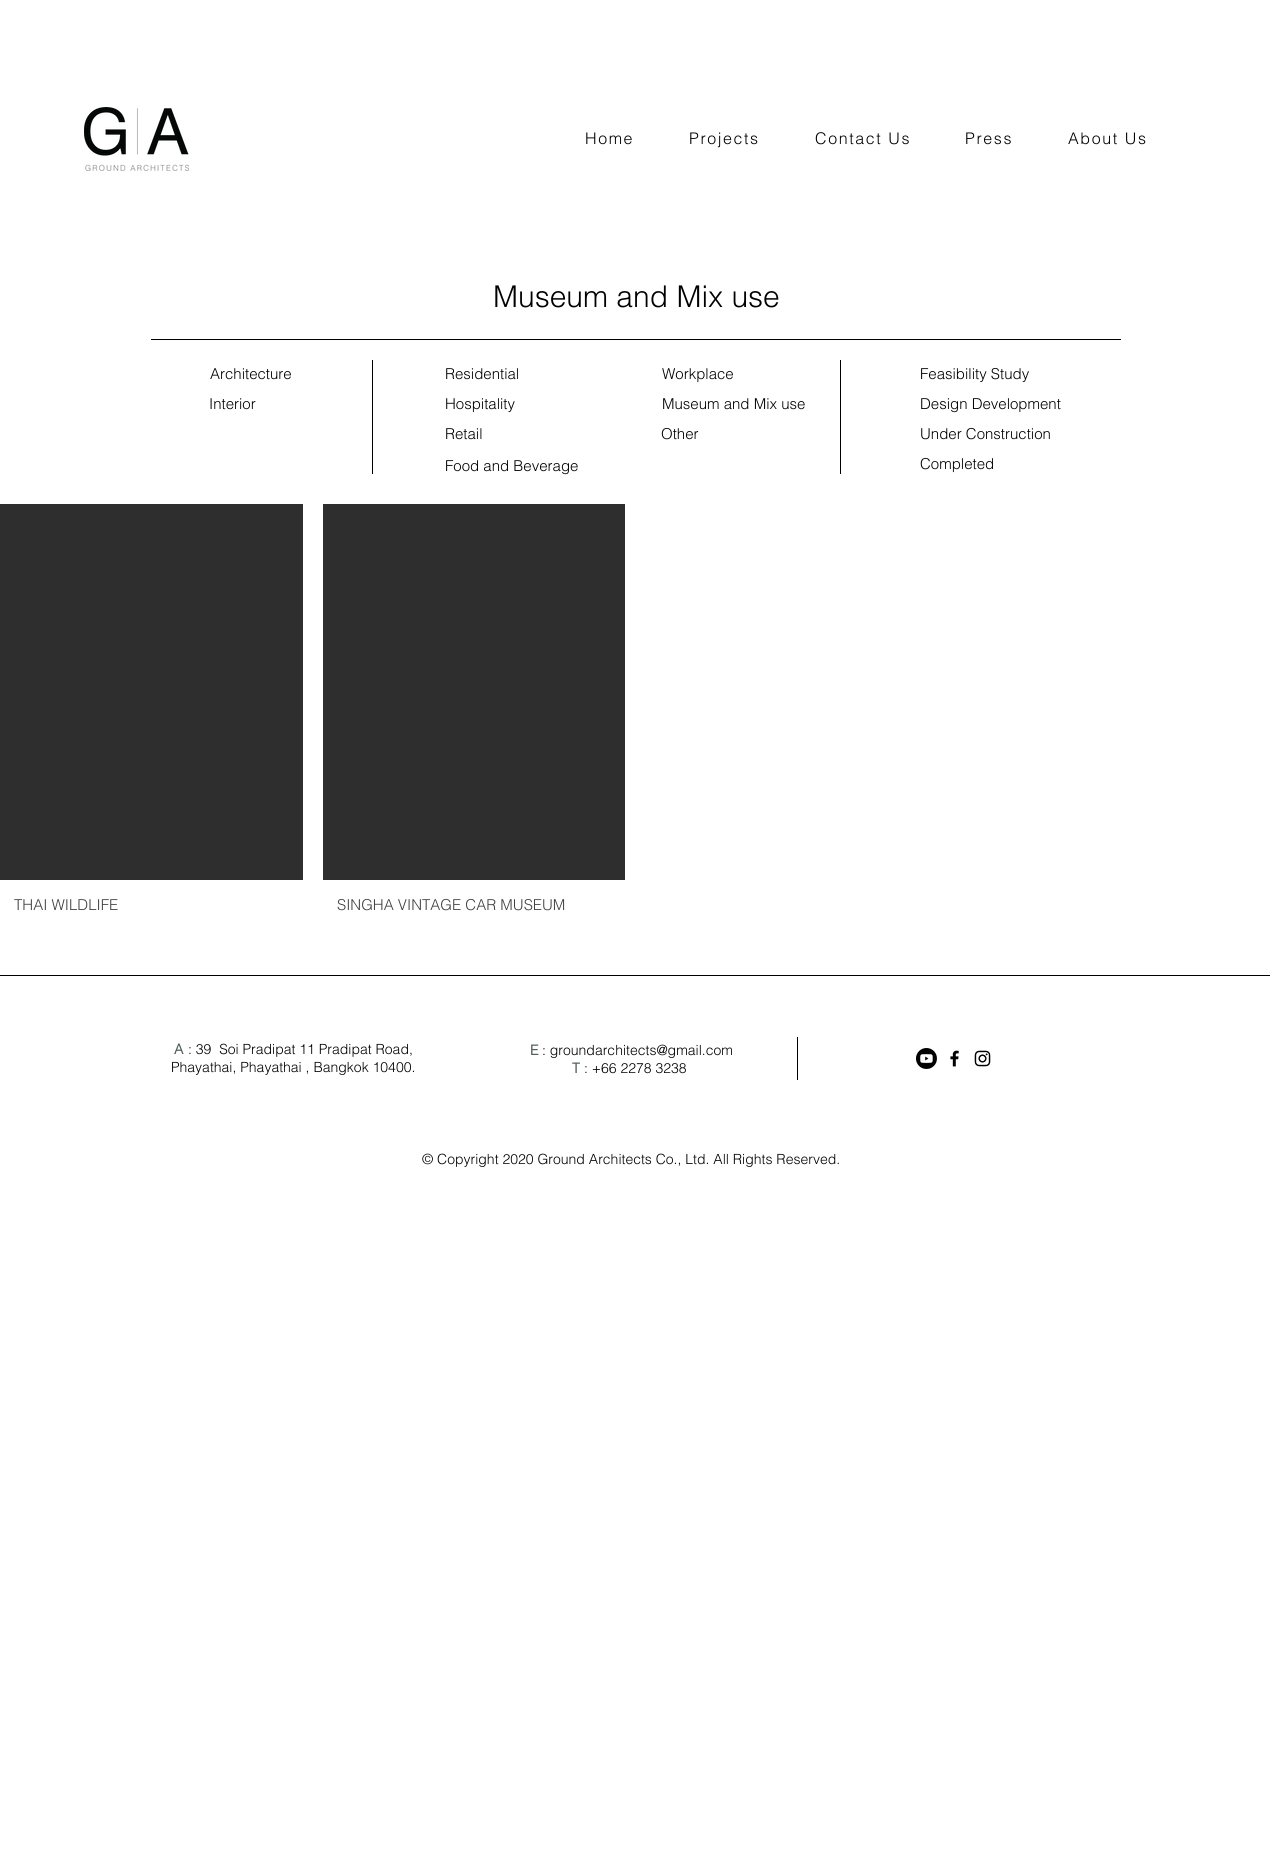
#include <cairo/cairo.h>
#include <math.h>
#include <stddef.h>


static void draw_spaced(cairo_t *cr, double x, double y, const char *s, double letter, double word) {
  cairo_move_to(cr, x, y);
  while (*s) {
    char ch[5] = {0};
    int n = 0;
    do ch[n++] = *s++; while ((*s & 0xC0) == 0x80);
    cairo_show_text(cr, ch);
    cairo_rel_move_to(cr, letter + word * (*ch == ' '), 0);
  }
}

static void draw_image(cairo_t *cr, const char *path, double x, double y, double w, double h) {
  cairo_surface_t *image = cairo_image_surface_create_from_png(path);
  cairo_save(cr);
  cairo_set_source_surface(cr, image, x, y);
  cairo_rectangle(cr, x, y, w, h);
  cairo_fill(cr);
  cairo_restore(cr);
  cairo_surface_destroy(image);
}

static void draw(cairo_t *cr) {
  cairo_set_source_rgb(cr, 1, 1, 1);
  cairo_paint(cr);
  draw_image(cr, "images/1.png", 84, 107, 105, 64);
  cairo_set_source_rgb(cr, 0, 0, 0);
  cairo_rectangle(cr, 151, 339, 970, 1);
  cairo_fill(cr);
  cairo_rectangle(cr, 372, 360, 1, 114);
  cairo_fill(cr);
  cairo_rectangle(cr, 840, 360, 1, 114);
  cairo_fill(cr);
  cairo_set_source_rgb(cr, 47 / 255.0, 46 / 255.0, 46 / 255.0);
  cairo_rectangle(cr, 0, 504, 303, 376);
  cairo_fill(cr);
  cairo_rectangle(cr, 323, 504, 302, 376);
  cairo_fill(cr);
  cairo_set_source_rgb(cr, 0, 0, 0);
  cairo_rectangle(cr, 0, 975, 1270, 1);
  cairo_fill(cr);
  cairo_rectangle(cr, 797, 1037, 1, 43);
  cairo_fill(cr);
  draw_image(cr, "images/2.png", 916, 1048, 21, 21);
  draw_image(cr, "images/3.png", 950, 1050, 9, 17);
  draw_image(cr, "images/4.png", 974, 1050, 17, 17);
  cairo_select_font_face(cr, "helvetica Light", CAIRO_FONT_SLANT_NORMAL, CAIRO_FONT_WEIGHT_NORMAL);
  cairo_set_font_size(cr, 16);
  draw_spaced(cr, 585, 144, "Home", 1.6, 0);
  draw_spaced(cr, 689, 144, "Projects", 1.6, 0);
  draw_spaced(cr, 815, 144, "Contact Us", 1.6, 0);
  draw_spaced(cr, 965, 144, "Press", 1.6, 0);
  draw_spaced(cr, 1068, 144, "About Us", 1.6, 0);
  cairo_set_font_size(cr, 30);
  cairo_move_to(cr, 493, 307);
  cairo_show_text(cr, "Museum and Mix use");
  cairo_set_font_size(cr, 15);
  cairo_move_to(cr, 210, 379);
  cairo_show_text(cr, "Architecture");
  cairo_move_to(cr, 445, 379);
  cairo_show_text(cr, "Residential");
  cairo_move_to(cr, 662, 379);
  cairo_show_text(cr, "Workplace");
  cairo_move_to(cr, 920, 379);
  cairo_show_text(cr, "Feasibility Study");
  cairo_move_to(cr, 209, 409);
  cairo_show_text(cr, "Interior");
  cairo_move_to(cr, 445, 409);
  cairo_show_text(cr, "Hospitality");
  cairo_move_to(cr, 662, 409);
  cairo_show_text(cr, "Museum and Mix use");
  cairo_move_to(cr, 920, 409);
  cairo_show_text(cr, "Design Development");
  cairo_move_to(cr, 445, 439);
  cairo_show_text(cr, "Retail");
  cairo_move_to(cr, 661, 439);
  cairo_show_text(cr, "Other");
  cairo_move_to(cr, 920, 439);
  cairo_show_text(cr, "Under Construction");
  cairo_move_to(cr, 445, 471);
  cairo_show_text(cr, "Food and Beverage");
  cairo_move_to(cr, 920, 469);
  cairo_show_text(cr, "Completed");
  cairo_set_source_rgb(cr, 64 / 255.0, 64 / 255.0, 64 / 255.0);
  cairo_move_to(cr, 14, 910);
  cairo_show_text(cr, "THAI WILDLIFE");
  cairo_move_to(cr, 337, 910);
  cairo_show_text(cr, "SINGHA VINTAGE CAR MUSEUM");
  cairo_select_font_face(cr, "helvetica", CAIRO_FONT_SLANT_NORMAL, CAIRO_FONT_WEIGHT_BOLD);
  cairo_set_font_size(cr, 14);
  cairo_set_source_rgb(cr, 80 / 255.0, 95 / 255.0, 87 / 255.0);
  cairo_move_to(cr, 174, 1054);
  cairo_show_text(cr, "A");
  cairo_select_font_face(cr, "helvetica Light", CAIRO_FONT_SLANT_NORMAL, CAIRO_FONT_WEIGHT_NORMAL);
  cairo_set_source_rgb(cr, 0, 0, 0);
  cairo_move_to(cr, 188, 1054);
  cairo_show_text(cr, ": 39  Soi Pradipat 11 Pradipat Road,");
  cairo_move_to(cr, 171, 1072);
  cairo_show_text(cr, "Phayathai, Phayathai , Bangkok 10400.");
  cairo_select_font_face(cr, "helvetica", CAIRO_FONT_SLANT_NORMAL, CAIRO_FONT_WEIGHT_BOLD);
  cairo_set_source_rgb(cr, 80 / 255.0, 95 / 255.0, 87 / 255.0);
  cairo_move_to(cr, 530, 1055);
  cairo_show_text(cr, "E");
  cairo_select_font_face(cr, "helvetica Light", CAIRO_FONT_SLANT_NORMAL, CAIRO_FONT_WEIGHT_NORMAL);
  cairo_set_source_rgb(cr, 0, 0, 0);
  cairo_move_to(cr, 542, 1055);
  cairo_show_text(cr, ": groundarchitects@gmail.com");
  cairo_select_font_face(cr, "helvetica", CAIRO_FONT_SLANT_NORMAL, CAIRO_FONT_WEIGHT_BOLD);
  cairo_set_source_rgb(cr, 80 / 255.0, 95 / 255.0, 87 / 255.0);
  cairo_move_to(cr, 572, 1073);
  cairo_show_text(cr, "T");
  cairo_select_font_face(cr, "helvetica Light", CAIRO_FONT_SLANT_NORMAL, CAIRO_FONT_WEIGHT_NORMAL);
  cairo_set_source_rgb(cr, 0, 0, 0);
  cairo_move_to(cr, 584, 1073);
  cairo_show_text(cr, ": +66 2278 3238");
  cairo_move_to(cr, 422, 1164);
  cairo_show_text(cr, "© Copyright 2020 Ground Architects Co., Ltd. All Rights Reserved.");
}

int main(void) {
  cairo_surface_t *surface = cairo_image_surface_create(CAIRO_FORMAT_RGB24, 1270, 1868);
  cairo_t *cr = cairo_create(surface);
  cairo_font_options_t *options = cairo_font_options_create();
  cairo_font_options_set_hint_metrics(options, CAIRO_HINT_METRICS_OFF);
  cairo_font_options_set_hint_style(options, CAIRO_HINT_STYLE_NONE);
  cairo_set_font_options(cr, options);
  cairo_set_miter_limit(cr, 4);
  draw(cr);
  cairo_surface_write_to_png(surface, "out.png");
  cairo_font_options_destroy(options);
  cairo_destroy(cr);
  cairo_surface_destroy(surface);
  return 0;
}
